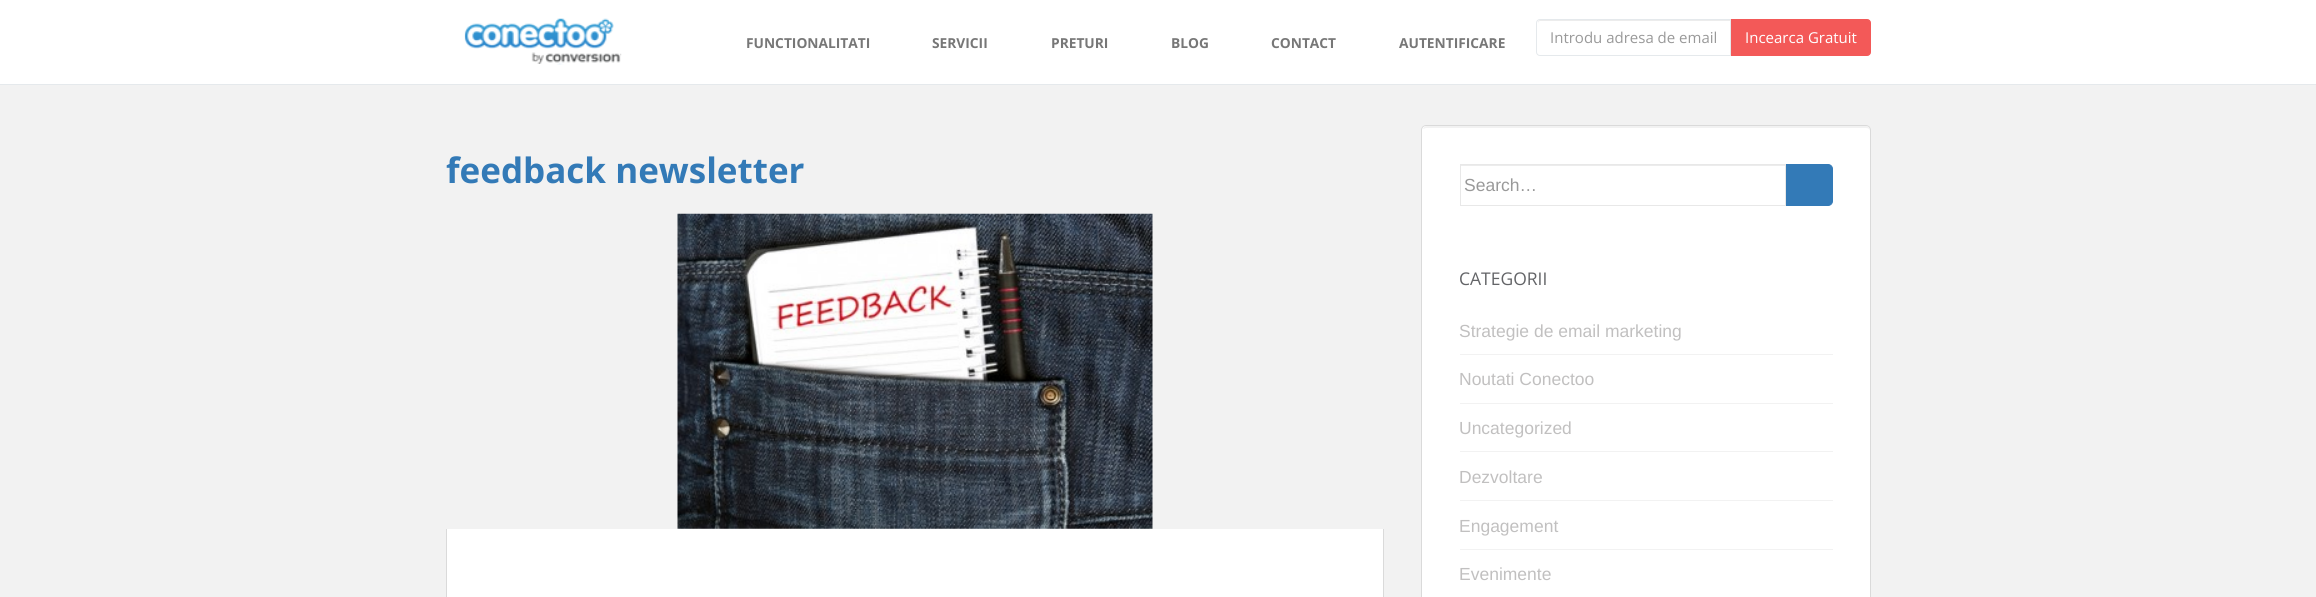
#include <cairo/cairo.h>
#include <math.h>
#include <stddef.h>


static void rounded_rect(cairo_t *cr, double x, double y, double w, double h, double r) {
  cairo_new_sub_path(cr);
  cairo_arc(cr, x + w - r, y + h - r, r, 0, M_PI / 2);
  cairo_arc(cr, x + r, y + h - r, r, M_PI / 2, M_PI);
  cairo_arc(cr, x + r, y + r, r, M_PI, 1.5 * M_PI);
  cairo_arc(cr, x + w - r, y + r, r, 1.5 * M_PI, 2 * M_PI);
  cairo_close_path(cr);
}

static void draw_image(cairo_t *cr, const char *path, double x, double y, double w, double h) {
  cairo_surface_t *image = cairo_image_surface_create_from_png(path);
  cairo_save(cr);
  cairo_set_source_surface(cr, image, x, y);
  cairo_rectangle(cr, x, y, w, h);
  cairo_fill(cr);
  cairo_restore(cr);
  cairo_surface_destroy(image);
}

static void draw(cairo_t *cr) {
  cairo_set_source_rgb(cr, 242 / 255.0, 242 / 255.0, 242 / 255.0);
  cairo_paint(cr);
  cairo_set_source_rgb(cr, 1, 1, 1);
  cairo_rectangle(cr, 0, 0, 2316, 84);
  cairo_fill(cr);
  cairo_set_source_rgb(cr, 229 / 255.0, 233 / 255.0, 236 / 255.0);
  cairo_rectangle(cr, 0, 84, 2316, 1);
  cairo_fill(cr);
  draw_image(cr, "images/1.png", 464, 18, 158, 47);
  cairo_set_source_rgb(cr, 236 / 255.0, 236 / 255.0, 236 / 255.0);
  cairo_new_path(cr);
  cairo_move_to(cr, 1540, 21);
  cairo_line_to(cr, 1730, 21);
  cairo_line_to(cr, 1730, 20);
  cairo_line_to(cr, 1540, 20);
  cairo_curve_to(cr, 1538, 20, 1538, 22, 1538, 24);
  cairo_curve_to(cr, 1538, 22, 1539, 21, 1540, 21);
  cairo_close_path(cr);
  cairo_fill(cr);
  cairo_new_path(cr);
  cairo_move_to(cr, 1540, 19.5);
  cairo_line_to(cr, 1730.5, 19.5);
  cairo_line_to(cr, 1730.5, 55.5);
  cairo_line_to(cr, 1540, 55.5);
  cairo_curve_to(cr, 1538, 55.5, 1536.5, 54, 1536.5, 52);
  cairo_line_to(cr, 1536.5, 23);
  cairo_curve_to(cr, 1536.5, 21, 1538, 19.5, 1540, 19.5);
  cairo_close_path(cr);
  cairo_set_source_rgb(cr, 229 / 255.0, 233 / 255.0, 236 / 255.0);
  cairo_set_line_width(cr, 1);
  cairo_stroke(cr);
  cairo_set_source_rgb(cr, 243 / 255.0, 89 / 255.0, 88 / 255.0);
  cairo_new_path(cr);
  cairo_move_to(cr, 1731.5, 19.5);
  cairo_line_to(cr, 1867, 19.5);
  cairo_curve_to(cr, 1869, 19.5, 1870.5, 21, 1870.5, 23);
  cairo_line_to(cr, 1870.5, 52);
  cairo_curve_to(cr, 1870.5, 54, 1869, 55.5, 1867, 55.5);
  cairo_line_to(cr, 1731.5, 55.5);
  cairo_close_path(cr);
  cairo_fill_preserve(cr);
  cairo_stroke(cr);
  draw_image(cr, "images/2.png", 677, 213, 476, 316);
  cairo_set_source_rgb(cr, 1, 1, 1);
  cairo_rectangle(cr, 447, 529, 936, 68);
  cairo_fill(cr);
  cairo_set_source_rgb(cr, 218 / 255.0, 218 / 255.0, 218 / 255.0);
  cairo_rectangle(cr, 1383, 529, 1, 68);
  cairo_fill(cr);
  cairo_rectangle(cr, 446, 529, 1, 68);
  cairo_fill(cr);
  cairo_set_source_rgb(cr, 1, 1, 1);
  rounded_rect(cr, 1421, 125, 450, 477, 5);
  cairo_fill(cr);
  cairo_set_source_rgb(cr, 242 / 255.0, 242 / 255.0, 242 / 255.0);
  cairo_new_path(cr);
  cairo_move_to(cr, 1426, 128);
  cairo_line_to(cr, 1866, 128);
  cairo_curve_to(cr, 1868, 128, 1870, 129, 1870, 131);
  cairo_line_to(cr, 1870, 130);
  cairo_curve_to(cr, 1870, 128, 1868, 126, 1866, 126);
  cairo_line_to(cr, 1427, 126);
  cairo_curve_to(cr, 1425, 126, 1424, 127, 1423, 129);
  cairo_close_path(cr);
  cairo_fill(cr);
  rounded_rect(cr, 1421.5, 125.5, 449, 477, 4.5);
  cairo_set_source_rgb(cr, 218 / 255.0, 218 / 255.0, 218 / 255.0);
  cairo_stroke(cr);
  cairo_set_source_rgb(cr, 236 / 255.0, 236 / 255.0, 236 / 255.0);
  cairo_rectangle(cr, 1461, 165, 324, 1);
  cairo_fill(cr);
  cairo_rectangle(cr, 1460.5, 164.5, 325, 41);
  cairo_set_source_rgb(cr, 232 / 255.0, 232 / 255.0, 232 / 255.0);
  cairo_stroke(cr);
  cairo_set_source_rgb(cr, 51 / 255.0, 122 / 255.0, 183 / 255.0);
  cairo_new_path(cr);
  cairo_move_to(cr, 1786.5, 164.5);
  cairo_line_to(cr, 1828, 164.5);
  cairo_curve_to(cr, 1830.5, 164.5, 1832.5, 166.5, 1832.5, 169);
  cairo_line_to(cr, 1832.5, 201);
  cairo_curve_to(cr, 1832.5, 203.5, 1830.5, 205.5, 1828, 205.5);
  cairo_line_to(cr, 1786.5, 205.5);
  cairo_close_path(cr);
  cairo_fill_preserve(cr);
  cairo_stroke(cr);
  cairo_set_source_rgb(cr, 242 / 255.0, 242 / 255.0, 242 / 255.0);
  cairo_rectangle(cr, 1460, 354, 373, 1);
  cairo_fill(cr);
  cairo_rectangle(cr, 1460, 403, 373, 1);
  cairo_fill(cr);
  cairo_rectangle(cr, 1460, 451, 373, 1);
  cairo_fill(cr);
  cairo_rectangle(cr, 1460, 500, 373, 1);
  cairo_fill(cr);
  cairo_rectangle(cr, 1460, 549, 373, 1);
  cairo_fill(cr);
  cairo_select_font_face(cr, "Open Sans", CAIRO_FONT_SLANT_NORMAL, CAIRO_FONT_WEIGHT_BOLD);
  cairo_set_font_size(cr, 13.75);
  cairo_set_source_rgb(cr, 119 / 255.0, 119 / 255.0, 119 / 255.0);
  cairo_move_to(cr, 746, 48);
  cairo_show_text(cr, "FUNCTIONALITATI");
  cairo_move_to(cr, 932, 48);
  cairo_show_text(cr, "SERVICII");
  cairo_move_to(cr, 1051, 48);
  cairo_show_text(cr, "PRETURI");
  cairo_move_to(cr, 1171, 48);
  cairo_show_text(cr, "BLOG");
  cairo_move_to(cr, 1271, 48);
  cairo_show_text(cr, "CONTACT");
  cairo_move_to(cr, 1399, 48);
  cairo_show_text(cr, "AUTENTIFICARE");
  cairo_select_font_face(cr, "Open Sans", CAIRO_FONT_SLANT_NORMAL, CAIRO_FONT_WEIGHT_NORMAL);
  cairo_set_font_size(cr, 15);
  cairo_set_source_rgb(cr, 153 / 255.0, 153 / 255.0, 153 / 255.0);
  cairo_move_to(cr, 1550, 43);
  cairo_show_text(cr, "Introdu adresa de email");
  cairo_set_source_rgb(cr, 1, 1, 1);
  cairo_move_to(cr, 1745, 43);
  cairo_show_text(cr, "Incearca Gratuit");
  cairo_select_font_face(cr, "Open Sans", CAIRO_FONT_SLANT_NORMAL, CAIRO_FONT_WEIGHT_BOLD);
  cairo_set_font_size(cr, 35);
  cairo_set_source_rgb(cr, 51 / 255.0, 122 / 255.0, 183 / 255.0);
  cairo_move_to(cr, 446, 183);
  cairo_show_text(cr, "feedback newsletter");
  cairo_select_font_face(cr, "Liberation Sans", CAIRO_FONT_SLANT_NORMAL, CAIRO_FONT_WEIGHT_NORMAL);
  cairo_set_font_size(cr, 17.5);
  cairo_set_source_rgb(cr, 153 / 255.0, 153 / 255.0, 153 / 255.0);
  cairo_move_to(cr, 1464, 191);
  cairo_show_text(cr, "Search…");
  cairo_select_font_face(cr, "Open Sans", CAIRO_FONT_SLANT_NORMAL, CAIRO_FONT_WEIGHT_NORMAL);
  cairo_set_source_rgb(cr, 99 / 255.0, 100 / 255.0, 103 / 255.0);
  cairo_move_to(cr, 1459, 285);
  cairo_show_text(cr, "CATEGORII");
  cairo_select_font_face(cr, "Liberation Sans", CAIRO_FONT_SLANT_NORMAL, CAIRO_FONT_WEIGHT_NORMAL);
  cairo_set_source_rgb(cr, 193 / 255.0, 192 / 255.0, 192 / 255.0);
  cairo_move_to(cr, 1459, 337);
  cairo_show_text(cr, "Strategie de email marketing");
  cairo_move_to(cr, 1459, 385);
  cairo_show_text(cr, "Noutati Conectoo");
  cairo_move_to(cr, 1459, 434);
  cairo_show_text(cr, "Uncategorized");
  cairo_move_to(cr, 1459, 483);
  cairo_show_text(cr, "Dezvoltare");
  cairo_move_to(cr, 1459, 532);
  cairo_show_text(cr, "Engagement");
  cairo_move_to(cr, 1459, 580);
  cairo_show_text(cr, "Evenimente");
}

int main(void) {
  cairo_surface_t *surface = cairo_image_surface_create(CAIRO_FORMAT_RGB24, 2316, 597);
  cairo_t *cr = cairo_create(surface);
  cairo_font_options_t *options = cairo_font_options_create();
  cairo_font_options_set_hint_metrics(options, CAIRO_HINT_METRICS_OFF);
  cairo_font_options_set_hint_style(options, CAIRO_HINT_STYLE_NONE);
  cairo_set_font_options(cr, options);
  cairo_set_miter_limit(cr, 4);
  draw(cr);
  cairo_surface_write_to_png(surface, "out.png");
  cairo_font_options_destroy(options);
  cairo_destroy(cr);
  cairo_surface_destroy(surface);
  return 0;
}
